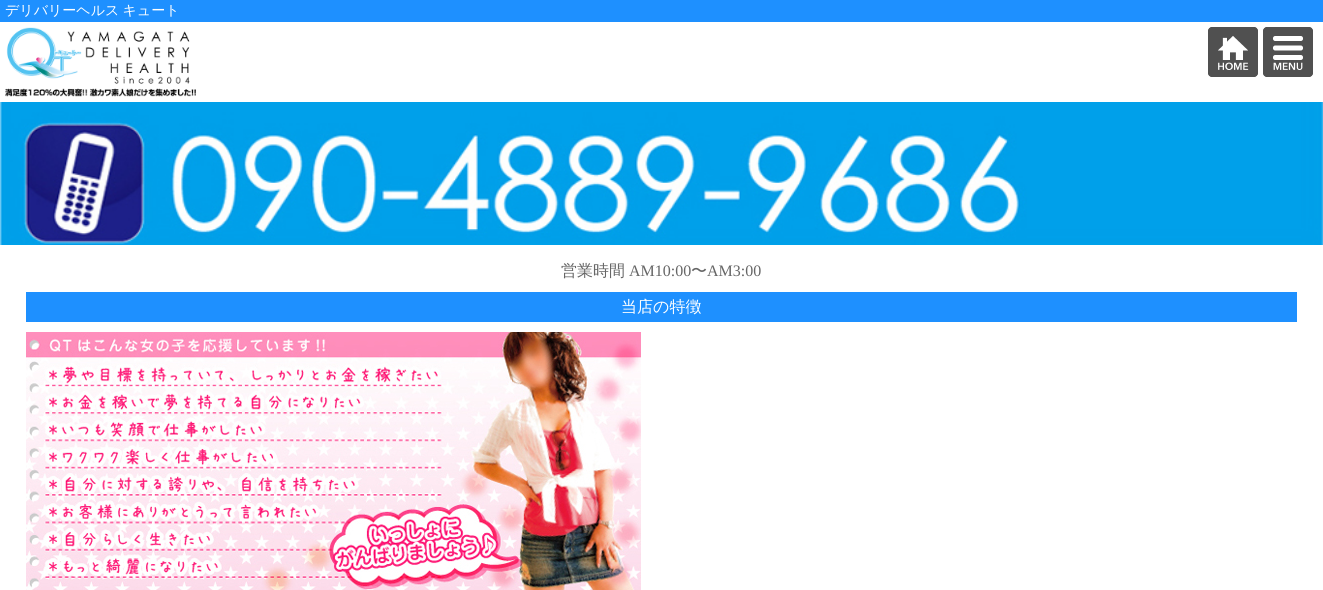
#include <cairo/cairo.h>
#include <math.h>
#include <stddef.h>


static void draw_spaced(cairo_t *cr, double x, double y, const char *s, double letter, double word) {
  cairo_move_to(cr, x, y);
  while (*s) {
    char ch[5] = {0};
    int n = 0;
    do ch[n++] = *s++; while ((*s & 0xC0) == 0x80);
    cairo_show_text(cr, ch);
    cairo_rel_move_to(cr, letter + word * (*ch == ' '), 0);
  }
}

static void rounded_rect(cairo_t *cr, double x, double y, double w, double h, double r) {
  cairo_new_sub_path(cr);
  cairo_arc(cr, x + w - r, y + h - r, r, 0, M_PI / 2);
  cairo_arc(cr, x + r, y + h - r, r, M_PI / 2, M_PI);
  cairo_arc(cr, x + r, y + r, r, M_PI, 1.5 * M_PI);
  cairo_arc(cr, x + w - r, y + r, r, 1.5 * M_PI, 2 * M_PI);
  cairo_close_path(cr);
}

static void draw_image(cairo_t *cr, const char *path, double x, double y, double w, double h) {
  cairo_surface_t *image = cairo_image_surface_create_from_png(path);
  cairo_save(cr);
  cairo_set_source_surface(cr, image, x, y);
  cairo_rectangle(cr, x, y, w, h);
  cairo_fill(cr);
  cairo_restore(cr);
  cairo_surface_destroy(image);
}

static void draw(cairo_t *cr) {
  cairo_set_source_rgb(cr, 1, 1, 1);
  cairo_paint(cr);
  cairo_set_source_rgb(cr, 30 / 255.0, 144 / 255.0, 1);
  cairo_rectangle(cr, 0, 0, 1323, 22);
  cairo_fill(cr);
  draw_image(cr, "images/1.png", 5, 27, 191, 70);
  cairo_set_source_rgb(cr, 80 / 255.0, 80 / 255.0, 80 / 255.0);
  rounded_rect(cr, 1208, 27, 50, 50, 4);
  cairo_fill(cr);
  draw_image(cr, "images/2.png", 1208, 27, 50, 50);
  rounded_rect(cr, 1263, 27, 50, 50, 4);
  cairo_fill(cr);
  draw_image(cr, "images/3.png", 1263, 27, 50, 50);
  draw_image(cr, "images/4.png", 0, 102, 1323, 143);
  cairo_set_source_rgb(cr, 30 / 255.0, 144 / 255.0, 1);
  cairo_rectangle(cr, 26, 292, 1271, 30);
  cairo_fill(cr);
  draw_image(cr, "images/5.png", 26, 332, 615, 258);
  cairo_select_font_face(cr, "WenQuanYi Zen Hei Medium", CAIRO_FONT_SLANT_NORMAL, CAIRO_FONT_WEIGHT_NORMAL);
  cairo_set_font_size(cr, 14);
  cairo_set_source_rgb(cr, 1, 1, 1);
  draw_spaced(cr, 5, 15, "デリバリーヘルス キュート", 0, -1);
  cairo_set_font_size(cr, 16);
  cairo_set_source_rgb(cr, 102 / 255.0, 102 / 255.0, 102 / 255.0);
  cairo_move_to(cr, 561, 276);
  cairo_show_text(cr, "営業時間");
  cairo_select_font_face(cr, "Liberation Serif", CAIRO_FONT_SLANT_NORMAL, CAIRO_FONT_WEIGHT_NORMAL);
  cairo_move_to(cr, 629, 276);
  cairo_show_text(cr, "AM10:00");
  cairo_select_font_face(cr, "WenQuanYi Zen Hei Medium", CAIRO_FONT_SLANT_NORMAL, CAIRO_FONT_WEIGHT_NORMAL);
  cairo_move_to(cr, 691, 276);
  cairo_show_text(cr, "〜");
  cairo_select_font_face(cr, "Liberation Serif", CAIRO_FONT_SLANT_NORMAL, CAIRO_FONT_WEIGHT_NORMAL);
  cairo_move_to(cr, 707, 276);
  cairo_show_text(cr, "AM3:00");
  cairo_select_font_face(cr, "WenQuanYi Zen Hei Medium", CAIRO_FONT_SLANT_NORMAL, CAIRO_FONT_WEIGHT_NORMAL);
  cairo_set_source_rgb(cr, 1, 1, 1);
  cairo_move_to(cr, 621, 312);
  cairo_show_text(cr, "当店の特徴");
}

int main(void) {
  cairo_surface_t *surface = cairo_image_surface_create(CAIRO_FORMAT_RGB24, 1323, 590);
  cairo_t *cr = cairo_create(surface);
  cairo_font_options_t *options = cairo_font_options_create();
  cairo_font_options_set_hint_metrics(options, CAIRO_HINT_METRICS_OFF);
  cairo_font_options_set_hint_style(options, CAIRO_HINT_STYLE_NONE);
  cairo_set_font_options(cr, options);
  cairo_set_miter_limit(cr, 4);
  draw(cr);
  cairo_surface_write_to_png(surface, "out.png");
  cairo_font_options_destroy(options);
  cairo_destroy(cr);
  cairo_surface_destroy(surface);
  return 0;
}
